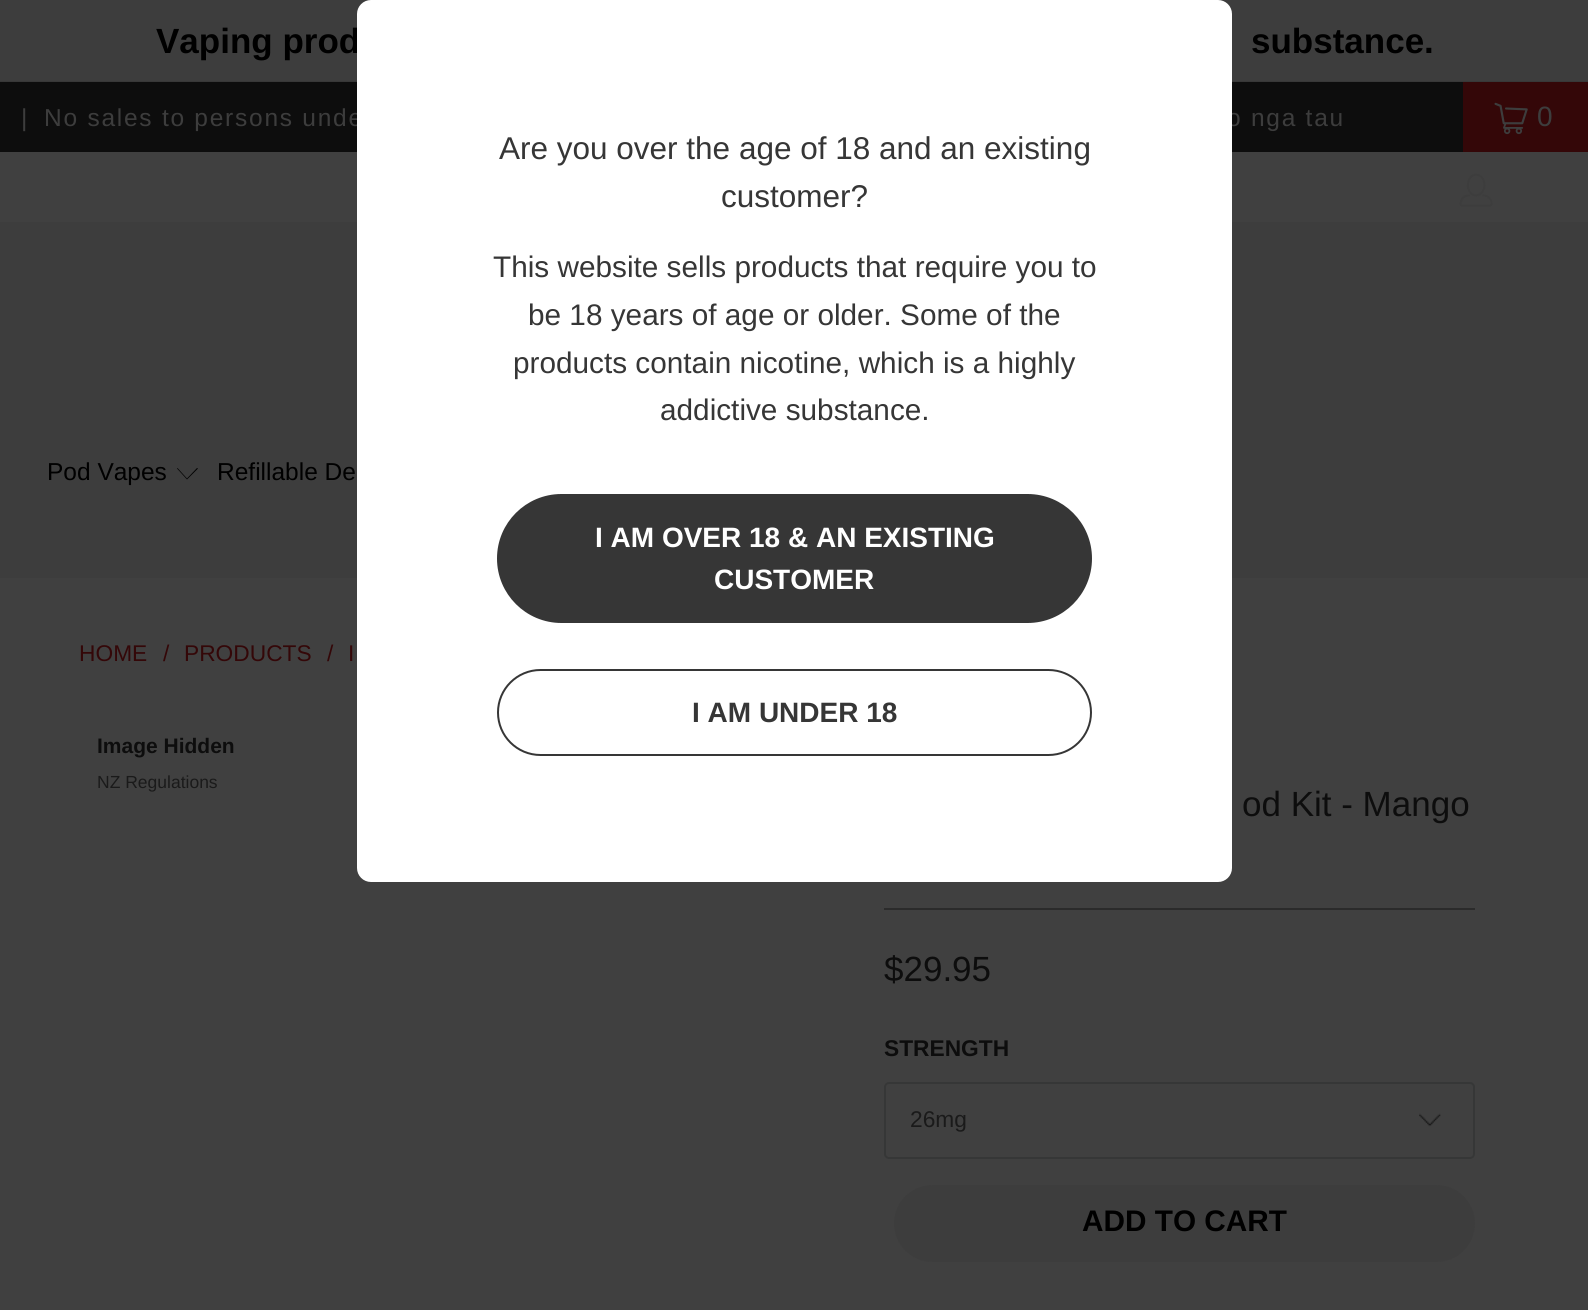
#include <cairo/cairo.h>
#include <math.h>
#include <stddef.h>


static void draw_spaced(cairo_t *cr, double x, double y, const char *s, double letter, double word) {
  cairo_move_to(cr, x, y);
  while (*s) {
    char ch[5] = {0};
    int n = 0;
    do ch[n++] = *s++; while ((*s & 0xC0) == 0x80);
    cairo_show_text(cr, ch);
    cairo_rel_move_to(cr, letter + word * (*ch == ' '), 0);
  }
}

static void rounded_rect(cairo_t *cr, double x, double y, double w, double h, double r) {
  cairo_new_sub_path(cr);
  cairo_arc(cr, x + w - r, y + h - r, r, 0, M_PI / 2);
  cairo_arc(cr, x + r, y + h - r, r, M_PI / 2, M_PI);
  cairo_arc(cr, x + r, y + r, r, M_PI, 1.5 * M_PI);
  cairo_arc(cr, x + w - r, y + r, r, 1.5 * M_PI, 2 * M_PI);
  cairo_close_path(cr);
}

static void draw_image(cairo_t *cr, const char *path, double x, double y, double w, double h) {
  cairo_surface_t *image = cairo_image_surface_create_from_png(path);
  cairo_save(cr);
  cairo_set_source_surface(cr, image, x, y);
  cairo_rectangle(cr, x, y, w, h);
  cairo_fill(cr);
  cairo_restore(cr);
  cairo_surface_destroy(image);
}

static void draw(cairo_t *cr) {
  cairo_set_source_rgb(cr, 64 / 255.0, 64 / 255.0, 64 / 255.0);
  cairo_paint(cr);
  cairo_set_source_rgb(cr, 61 / 255.0, 61 / 255.0, 61 / 255.0);
  cairo_rectangle(cr, 0, 0, 1588, 81);
  cairo_fill(cr);
  cairo_set_source_rgb(cr, 56 / 255.0, 56 / 255.0, 56 / 255.0);
  cairo_rectangle(cr, 0, 81, 1588, 1);
  cairo_fill(cr);
  cairo_set_source_rgb(cr, 13 / 255.0, 13 / 255.0, 13 / 255.0);
  cairo_rectangle(cr, 0, 82, 1463, 70);
  cairo_fill(cr);
  cairo_set_source_rgb(cr, 52 / 255.0, 7 / 255.0, 8 / 255.0);
  cairo_rectangle(cr, 1463, 82, 125, 70);
  cairo_fill(cr);
  draw_image(cr, "images/1.png", 1494, 102, 34, 33);
  draw_image(cr, "images/2.png", 1459, 173, 34, 34);
  cairo_set_source_rgb(cr, 61 / 255.0, 61 / 255.0, 61 / 255.0);
  cairo_rectangle(cr, 0, 222, 1588, 356);
  cairo_fill(cr);
  cairo_set_source_rgb(cr, 1 / 255.0, 1 / 255.0, 1 / 255.0);
  cairo_new_path(cr);
  cairo_move_to(cr, 187, 479.5);
  cairo_line_to(cr, 177, 468.5);
  cairo_line_to(cr, 177.5, 468);
  cairo_line_to(cr, 187, 478.5);
  cairo_line_to(cr, 197, 468);
  cairo_line_to(cr, 198, 468.5);
  cairo_close_path(cr);
  cairo_fill(cr);
  cairo_set_source_rgb(cr, 43 / 255.0, 43 / 255.0, 43 / 255.0);
  cairo_rectangle(cr, 884, 908, 591, 2);
  cairo_fill(cr);
  draw_image(cr, "images/3.png", 1419, 1113, 22, 14);
  rounded_rect(cr, 885, 1083, 589, 75, 4);
  cairo_set_source_rgb(cr, 54 / 255.0, 55 / 255.0, 55 / 255.0);
  cairo_stroke(cr);
  cairo_set_source_rgb(cr, 61 / 255.0, 61 / 255.0, 61 / 255.0);
  rounded_rect(cr, 894, 1185, 581, 77, 38.5);
  cairo_fill(cr);
  cairo_select_font_face(cr, "Liberation Sans", CAIRO_FONT_SLANT_NORMAL, CAIRO_FONT_WEIGHT_BOLD);
  cairo_set_font_size(cr, 35);
  cairo_set_source_rgb(cr, 0, 0, 0);
  cairo_move_to(cr, 156, 53);
  cairo_show_text(cr, "Vaping prod");
  cairo_move_to(cr, 1251, 53);
  cairo_show_text(cr, "substance.");
  cairo_select_font_face(cr, "Liberation Sans", CAIRO_FONT_SLANT_NORMAL, CAIRO_FONT_WEIGHT_NORMAL);
  cairo_set_font_size(cr, 24.5);
  cairo_set_source_rgb(cr, 61 / 255.0, 61 / 255.0, 61 / 255.0);
  draw_spaced(cr, 21, 126, "|", 1.75, 0);
  draw_spaced(cr, 44, 126, "No sales to persons unde", 1.75, 0);
  draw_spaced(cr, 1227, 126, "o nga tau", 1.75, 0);
  cairo_set_font_size(cr, 28);
  draw_spaced(cr, 1537, 126, "0", 1.75, 0);
  cairo_set_font_size(cr, 24.5);
  cairo_set_source_rgb(cr, 0, 0, 0);
  cairo_move_to(cr, 47, 480);
  cairo_show_text(cr, "Pod Vapes");
  cairo_move_to(cr, 217, 480);
  cairo_show_text(cr, "Refillable De");
  cairo_set_source_rgb(cr, 1, 1, 1);
  rounded_rect(cr, 357, 0, 875, 882, 14);
  cairo_fill(cr);
  cairo_set_font_size(cr, 31.5);
  cairo_set_source_rgb(cr, 54 / 255.0, 54 / 255.0, 54 / 255.0);
  cairo_move_to(cr, 499, 159);
  cairo_show_text(cr, "Are you over the age of 18 and an existing");
  cairo_move_to(cr, 721, 207);
  cairo_show_text(cr, "customer?");
  cairo_set_font_size(cr, 29.75);
  cairo_move_to(cr, 493, 277);
  cairo_show_text(cr, "This website sells products that require you to");
  cairo_move_to(cr, 528, 325);
  cairo_show_text(cr, "be 18 years of age or older. Some of the");
  cairo_move_to(cr, 513, 373);
  cairo_show_text(cr, "products contain nicotine, which is a highly");
  cairo_move_to(cr, 660, 420);
  cairo_show_text(cr, "addictive substance.");
  rounded_rect(cr, 498, 495, 593, 127, 63.5);
  cairo_fill_preserve(cr);
  cairo_stroke(cr);
  cairo_select_font_face(cr, "Liberation Sans", CAIRO_FONT_SLANT_NORMAL, CAIRO_FONT_WEIGHT_BOLD);
  cairo_set_font_size(cr, 28);
  cairo_set_source_rgb(cr, 1, 1, 1);
  cairo_move_to(cr, 595, 547);
  cairo_show_text(cr, "I AM OVER 18 & AN EXISTING");
  cairo_move_to(cr, 714, 589);
  cairo_show_text(cr, "CUSTOMER");
  rounded_rect(cr, 498, 670, 593, 85, 42.5);
  cairo_set_source_rgb(cr, 54 / 255.0, 54 / 255.0, 54 / 255.0);
  cairo_stroke(cr);
  cairo_move_to(cr, 692, 722);
  cairo_show_text(cr, "I AM UNDER 18");
  cairo_select_font_face(cr, "Liberation Sans", CAIRO_FONT_SLANT_NORMAL, CAIRO_FONT_WEIGHT_NORMAL);
  cairo_set_font_size(cr, 22.75);
  cairo_set_source_rgb(cr, 52 / 255.0, 7 / 255.0, 8 / 255.0);
  cairo_move_to(cr, 79, 661);
  cairo_show_text(cr, "HOME");
  cairo_move_to(cr, 163, 661);
  cairo_show_text(cr, "/");
  cairo_move_to(cr, 184, 661);
  cairo_show_text(cr, "PRODUCTS");
  cairo_move_to(cr, 327, 661);
  cairo_show_text(cr, "/");
  cairo_move_to(cr, 348, 661);
  cairo_show_text(cr, "I");
  cairo_select_font_face(cr, "Liberation Sans", CAIRO_FONT_SLANT_NORMAL, CAIRO_FONT_WEIGHT_BOLD);
  cairo_set_font_size(cr, 21);
  cairo_set_source_rgb(cr, 13 / 255.0, 13 / 255.0, 13 / 255.0);
  cairo_move_to(cr, 97, 753);
  cairo_show_text(cr, "Image Hidden");
  cairo_select_font_face(cr, "Liberation Sans", CAIRO_FONT_SLANT_NORMAL, CAIRO_FONT_WEIGHT_NORMAL);
  cairo_set_font_size(cr, 17.5);
  cairo_set_source_rgb(cr, 26 / 255.0, 26 / 255.0, 26 / 255.0);
  cairo_move_to(cr, 97, 788);
  cairo_show_text(cr, "NZ Regulations");
  cairo_set_font_size(cr, 35);
  cairo_set_source_rgb(cr, 13 / 255.0, 13 / 255.0, 13 / 255.0);
  cairo_move_to(cr, 1242, 816);
  cairo_show_text(cr, "od Kit - Mango");
  cairo_move_to(cr, 884, 981);
  cairo_show_text(cr, "$29.95");
  cairo_select_font_face(cr, "Liberation Sans", CAIRO_FONT_SLANT_NORMAL, CAIRO_FONT_WEIGHT_BOLD);
  cairo_set_font_size(cr, 22.75);
  cairo_move_to(cr, 884, 1056);
  cairo_show_text(cr, "STRENGTH");
  cairo_select_font_face(cr, "Liberation Sans", CAIRO_FONT_SLANT_NORMAL, CAIRO_FONT_WEIGHT_NORMAL);
  cairo_set_source_rgb(cr, 26 / 255.0, 26 / 255.0, 26 / 255.0);
  cairo_move_to(cr, 910, 1127);
  cairo_show_text(cr, "26mg");
  cairo_select_font_face(cr, "Liberation Sans", CAIRO_FONT_SLANT_NORMAL, CAIRO_FONT_WEIGHT_BOLD);
  cairo_set_font_size(cr, 29.75);
  cairo_set_source_rgb(cr, 0, 0, 0);
  cairo_move_to(cr, 1082, 1231);
  cairo_show_text(cr, "ADD TO CART");
}

int main(void) {
  cairo_surface_t *surface = cairo_image_surface_create(CAIRO_FORMAT_RGB24, 1588, 1310);
  cairo_t *cr = cairo_create(surface);
  cairo_font_options_t *options = cairo_font_options_create();
  cairo_font_options_set_hint_metrics(options, CAIRO_HINT_METRICS_OFF);
  cairo_font_options_set_hint_style(options, CAIRO_HINT_STYLE_NONE);
  cairo_set_font_options(cr, options);
  cairo_set_miter_limit(cr, 4);
  draw(cr);
  cairo_surface_write_to_png(surface, "out.png");
  cairo_font_options_destroy(options);
  cairo_destroy(cr);
  cairo_surface_destroy(surface);
  return 0;
}
